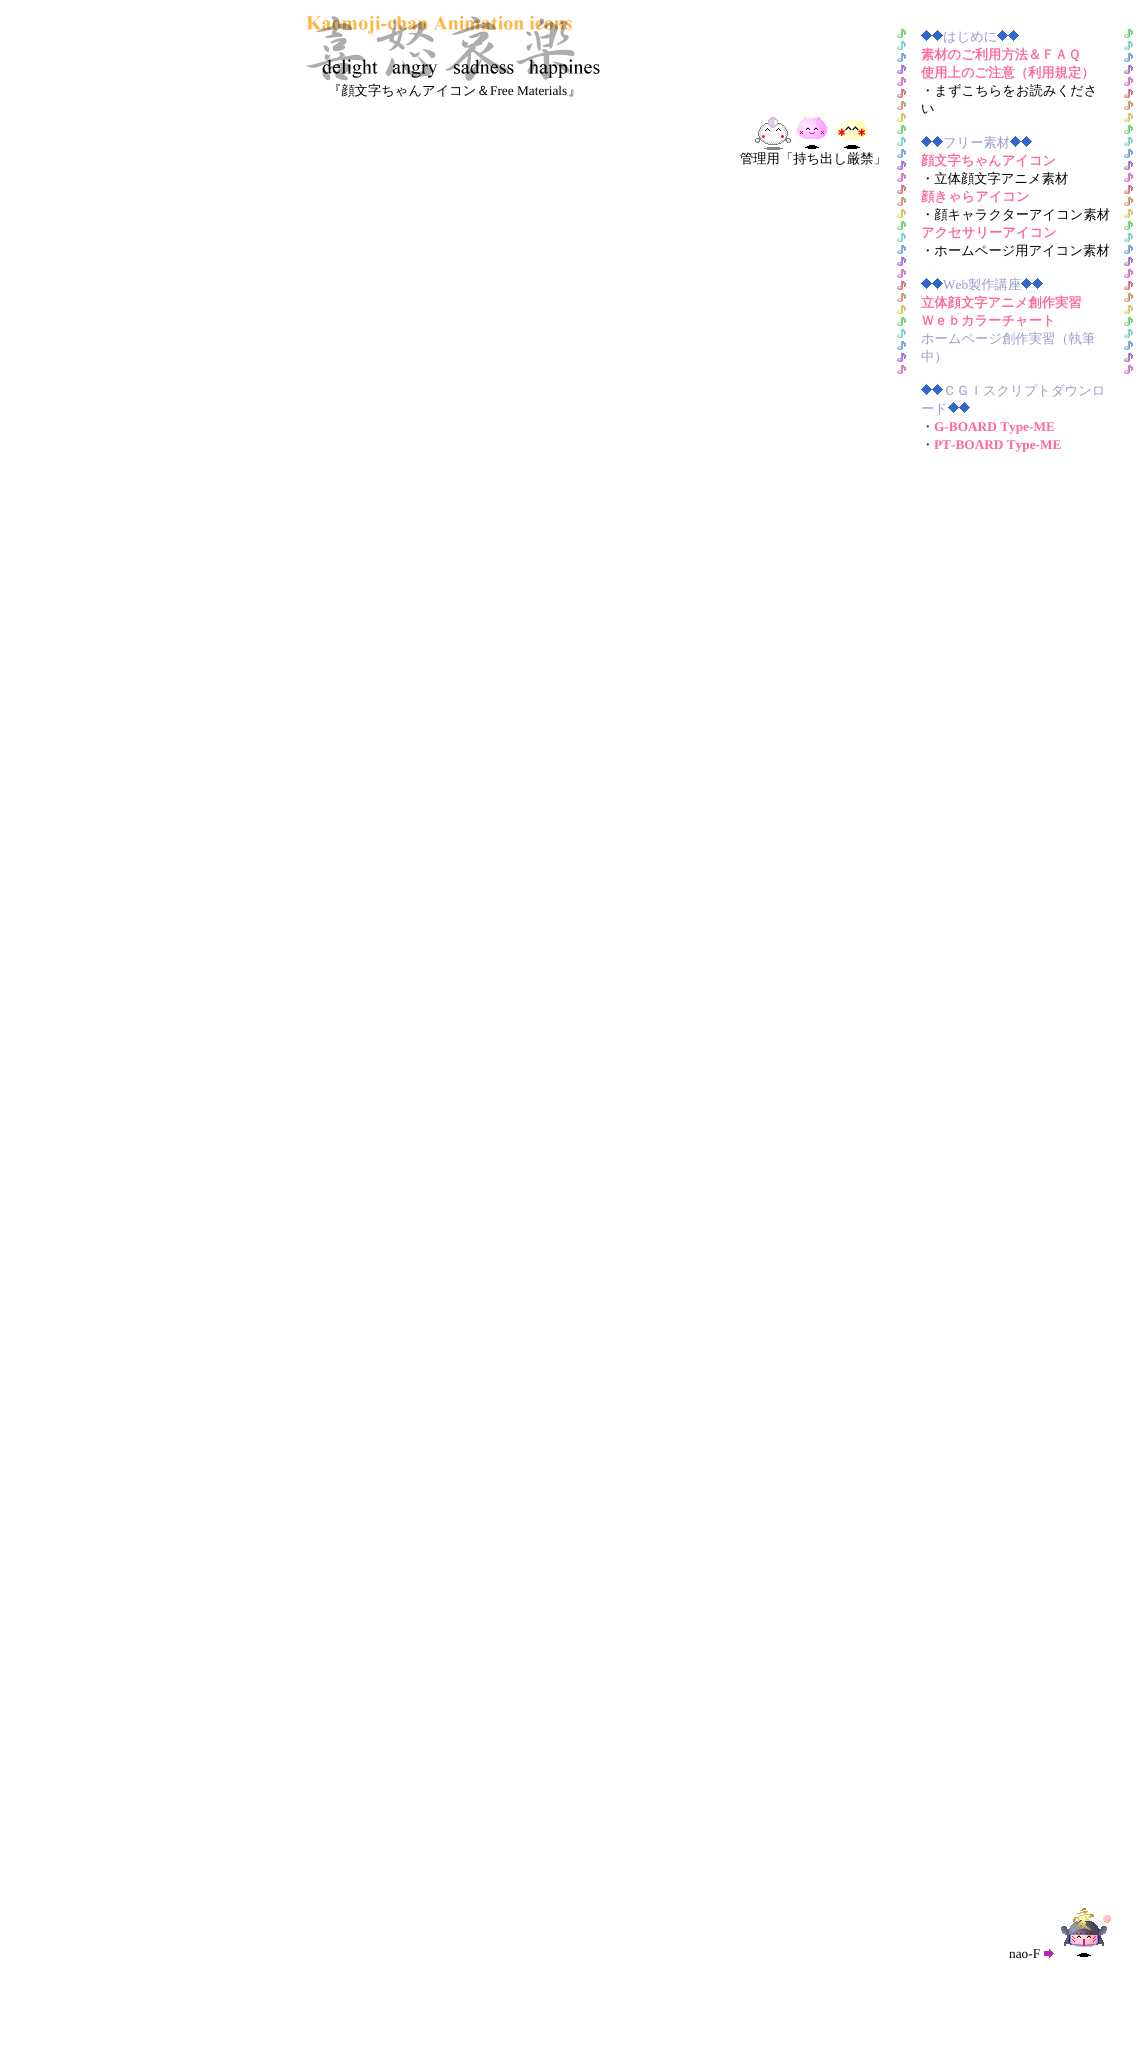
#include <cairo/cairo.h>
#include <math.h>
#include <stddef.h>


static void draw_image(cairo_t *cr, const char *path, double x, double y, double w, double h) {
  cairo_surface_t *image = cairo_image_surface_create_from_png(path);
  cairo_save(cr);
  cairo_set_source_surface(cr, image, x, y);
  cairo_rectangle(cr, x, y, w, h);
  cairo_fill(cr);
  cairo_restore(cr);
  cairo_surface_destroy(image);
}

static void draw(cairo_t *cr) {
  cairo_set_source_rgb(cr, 1, 1, 1);
  cairo_paint(cr);
  draw_image(cr, "images/1.png", 306, 16, 294, 65);
  draw_image(cr, "images/2.png", 755, 117, 36, 33);
  draw_image(cr, "images/3.png", 797, 114, 30, 35);
  draw_image(cr, "images/4.png", 837, 120, 30, 29);
  draw_image(cr, "images/5.png", 897, 29, 9, 345);
  draw_image(cr, "images/6.png", 921, 30, 11, 11);
  draw_image(cr, "images/6.png", 932, 30, 11, 11);
  draw_image(cr, "images/6.png", 997, 30, 11, 11);
  draw_image(cr, "images/6.png", 1008, 30, 11, 11);
  draw_image(cr, "images/6.png", 921, 136, 11, 11);
  draw_image(cr, "images/6.png", 932, 136, 11, 11);
  draw_image(cr, "images/6.png", 1010, 136, 11, 11);
  draw_image(cr, "images/6.png", 1021, 136, 11, 11);
  draw_image(cr, "images/6.png", 921, 278, 11, 11);
  draw_image(cr, "images/6.png", 932, 278, 11, 11);
  draw_image(cr, "images/6.png", 1021, 278, 11, 11);
  draw_image(cr, "images/6.png", 1032, 278, 11, 11);
  draw_image(cr, "images/6.png", 921, 384, 11, 11);
  draw_image(cr, "images/6.png", 932, 384, 11, 11);
  draw_image(cr, "images/6.png", 948, 402, 11, 11);
  draw_image(cr, "images/6.png", 959, 402, 11, 11);
  draw_image(cr, "images/5.png", 1124, 29, 9, 345);
  draw_image(cr, "images/7.png", 1044, 1949, 10, 9);
  draw_image(cr, "images/8.png", 1061, 1908, 50, 49);
  cairo_select_font_face(cr, "WenQuanYi Zen Hei Medium", CAIRO_FONT_SLANT_NORMAL, CAIRO_FONT_WEIGHT_NORMAL);
  cairo_set_font_size(cr, 13.3);
  cairo_set_source_rgb(cr, 0, 0, 0);
  cairo_move_to(cr, 328, 95);
  cairo_show_text(cr, "『顔文字ちゃんアイコン＆");
  cairo_select_font_face(cr, "Liberation Serif", CAIRO_FONT_SLANT_NORMAL, CAIRO_FONT_WEIGHT_NORMAL);
  cairo_move_to(cr, 490, 95);
  cairo_show_text(cr, "Free Materials");
  cairo_select_font_face(cr, "WenQuanYi Zen Hei Medium", CAIRO_FONT_SLANT_NORMAL, CAIRO_FONT_WEIGHT_NORMAL);
  cairo_move_to(cr, 568, 95);
  cairo_show_text(cr, "』");
  cairo_move_to(cr, 740, 163);
  cairo_show_text(cr, "管理用「持ち出し厳禁」");
  cairo_set_source_rgb(cr, 153 / 255.0, 153 / 255.0, 204 / 255.0);
  cairo_move_to(cr, 943, 41);
  cairo_show_text(cr, "はじめに");
  cairo_select_font_face(cr, "WenQuanYi Zen Hei", CAIRO_FONT_SLANT_NORMAL, CAIRO_FONT_WEIGHT_BOLD);
  cairo_set_source_rgb(cr, 1, 102 / 255.0, 153 / 255.0);
  cairo_move_to(cr, 921, 59);
  cairo_show_text(cr, "素材のご利用方法＆ＦＡＱ");
  cairo_move_to(cr, 921, 77);
  cairo_show_text(cr, "使用上のご注意（利用規定）");
  cairo_select_font_face(cr, "WenQuanYi Zen Hei Medium", CAIRO_FONT_SLANT_NORMAL, CAIRO_FONT_WEIGHT_NORMAL);
  cairo_set_source_rgb(cr, 0, 0, 0);
  cairo_move_to(cr, 921, 95);
  cairo_show_text(cr, "・まずこちらをお読みくださ");
  cairo_move_to(cr, 921, 113);
  cairo_show_text(cr, "い");
  cairo_set_source_rgb(cr, 153 / 255.0, 153 / 255.0, 204 / 255.0);
  cairo_move_to(cr, 943, 147);
  cairo_show_text(cr, "フリー素材");
  cairo_select_font_face(cr, "WenQuanYi Zen Hei", CAIRO_FONT_SLANT_NORMAL, CAIRO_FONT_WEIGHT_BOLD);
  cairo_set_source_rgb(cr, 1, 102 / 255.0, 153 / 255.0);
  cairo_move_to(cr, 921, 165);
  cairo_show_text(cr, "顔文字ちゃんアイコン");
  cairo_select_font_face(cr, "WenQuanYi Zen Hei Medium", CAIRO_FONT_SLANT_NORMAL, CAIRO_FONT_WEIGHT_NORMAL);
  cairo_set_source_rgb(cr, 0, 0, 0);
  cairo_move_to(cr, 921, 183);
  cairo_show_text(cr, "・立体顔文字アニメ素材");
  cairo_select_font_face(cr, "WenQuanYi Zen Hei", CAIRO_FONT_SLANT_NORMAL, CAIRO_FONT_WEIGHT_BOLD);
  cairo_set_source_rgb(cr, 1, 102 / 255.0, 153 / 255.0);
  cairo_move_to(cr, 921, 201);
  cairo_show_text(cr, "顔きゃらアイコン");
  cairo_select_font_face(cr, "WenQuanYi Zen Hei Medium", CAIRO_FONT_SLANT_NORMAL, CAIRO_FONT_WEIGHT_NORMAL);
  cairo_set_source_rgb(cr, 0, 0, 0);
  cairo_move_to(cr, 921, 219);
  cairo_show_text(cr, "・顔キャラクターアイコン素材");
  cairo_select_font_face(cr, "WenQuanYi Zen Hei", CAIRO_FONT_SLANT_NORMAL, CAIRO_FONT_WEIGHT_BOLD);
  cairo_set_source_rgb(cr, 1, 102 / 255.0, 153 / 255.0);
  cairo_move_to(cr, 921, 237);
  cairo_show_text(cr, "アクセサリーアイコン");
  cairo_select_font_face(cr, "WenQuanYi Zen Hei Medium", CAIRO_FONT_SLANT_NORMAL, CAIRO_FONT_WEIGHT_NORMAL);
  cairo_set_source_rgb(cr, 0, 0, 0);
  cairo_move_to(cr, 921, 255);
  cairo_show_text(cr, "・ホームページ用アイコン素材");
  cairo_select_font_face(cr, "Liberation Serif", CAIRO_FONT_SLANT_NORMAL, CAIRO_FONT_WEIGHT_NORMAL);
  cairo_set_source_rgb(cr, 153 / 255.0, 153 / 255.0, 204 / 255.0);
  cairo_move_to(cr, 943, 289);
  cairo_show_text(cr, "Web");
  cairo_select_font_face(cr, "WenQuanYi Zen Hei Medium", CAIRO_FONT_SLANT_NORMAL, CAIRO_FONT_WEIGHT_NORMAL);
  cairo_move_to(cr, 968, 289);
  cairo_show_text(cr, "製作講座");
  cairo_select_font_face(cr, "WenQuanYi Zen Hei", CAIRO_FONT_SLANT_NORMAL, CAIRO_FONT_WEIGHT_BOLD);
  cairo_set_source_rgb(cr, 1, 102 / 255.0, 153 / 255.0);
  cairo_move_to(cr, 921, 307);
  cairo_show_text(cr, "立体顔文字アニメ創作実習");
  cairo_move_to(cr, 921, 325);
  cairo_show_text(cr, "Ｗｅｂカラーチャート");
  cairo_select_font_face(cr, "WenQuanYi Zen Hei Medium", CAIRO_FONT_SLANT_NORMAL, CAIRO_FONT_WEIGHT_NORMAL);
  cairo_set_source_rgb(cr, 153 / 255.0, 153 / 255.0, 204 / 255.0);
  cairo_move_to(cr, 921, 343);
  cairo_show_text(cr, "ホームページ創作実習（執筆");
  cairo_move_to(cr, 921, 361);
  cairo_show_text(cr, "中）");
  cairo_move_to(cr, 943, 395);
  cairo_show_text(cr, "ＣＧＩスクリプトダウンロ");
  cairo_move_to(cr, 921, 413);
  cairo_show_text(cr, "ード");
  cairo_set_source_rgb(cr, 0, 51 / 255.0, 51 / 255.0);
  cairo_move_to(cr, 921, 431);
  cairo_show_text(cr, "・");
  cairo_select_font_face(cr, "Liberation Serif", CAIRO_FONT_SLANT_NORMAL, CAIRO_FONT_WEIGHT_BOLD);
  cairo_set_source_rgb(cr, 1, 102 / 255.0, 153 / 255.0);
  cairo_move_to(cr, 934, 431);
  cairo_show_text(cr, "G-BOARD Type-ME");
  cairo_select_font_face(cr, "WenQuanYi Zen Hei Medium", CAIRO_FONT_SLANT_NORMAL, CAIRO_FONT_WEIGHT_NORMAL);
  cairo_set_source_rgb(cr, 0, 51 / 255.0, 51 / 255.0);
  cairo_move_to(cr, 921, 449);
  cairo_show_text(cr, "・");
  cairo_select_font_face(cr, "Liberation Serif", CAIRO_FONT_SLANT_NORMAL, CAIRO_FONT_WEIGHT_BOLD);
  cairo_set_source_rgb(cr, 1, 102 / 255.0, 153 / 255.0);
  cairo_move_to(cr, 934, 449);
  cairo_show_text(cr, "PT-BOARD Type-ME");
  cairo_select_font_face(cr, "Liberation Serif", CAIRO_FONT_SLANT_NORMAL, CAIRO_FONT_WEIGHT_NORMAL);
  cairo_set_source_rgb(cr, 0, 0, 0);
  cairo_move_to(cr, 1009, 1958);
  cairo_show_text(cr, "nao-F");
}

int main(void) {
  cairo_surface_t *surface = cairo_image_surface_create(CAIRO_FORMAT_RGB24, 1146, 2058);
  cairo_t *cr = cairo_create(surface);
  cairo_font_options_t *options = cairo_font_options_create();
  cairo_font_options_set_hint_metrics(options, CAIRO_HINT_METRICS_OFF);
  cairo_font_options_set_hint_style(options, CAIRO_HINT_STYLE_NONE);
  cairo_set_font_options(cr, options);
  cairo_set_miter_limit(cr, 4);
  draw(cr);
  cairo_surface_write_to_png(surface, "out.png");
  cairo_font_options_destroy(options);
  cairo_destroy(cr);
  cairo_surface_destroy(surface);
  return 0;
}
